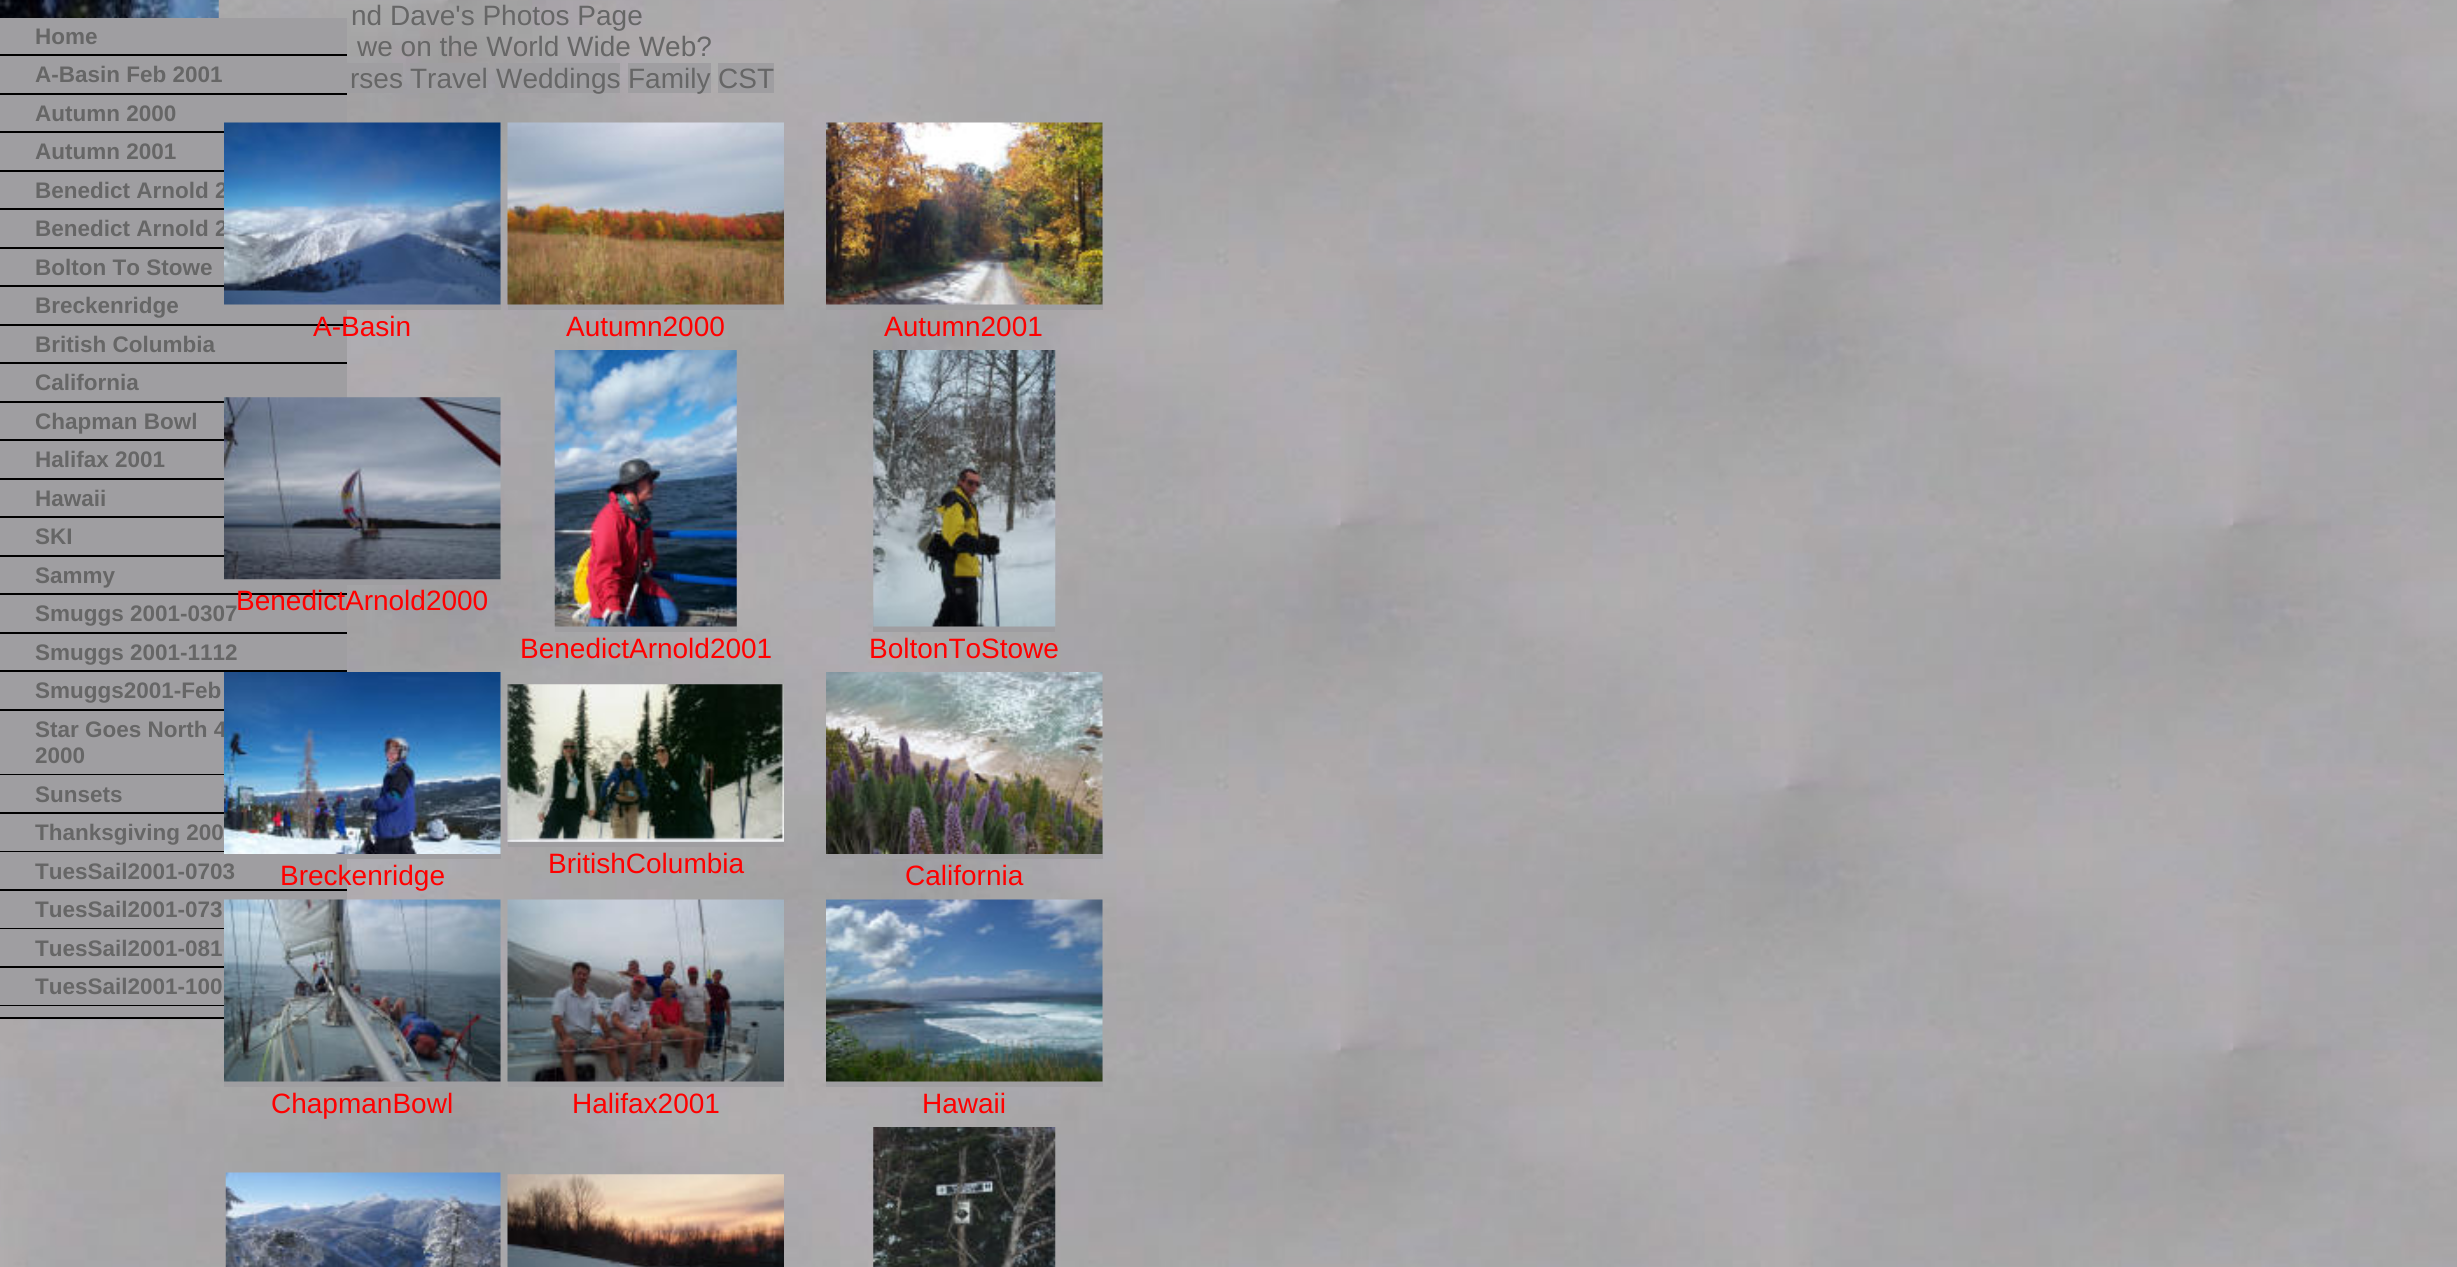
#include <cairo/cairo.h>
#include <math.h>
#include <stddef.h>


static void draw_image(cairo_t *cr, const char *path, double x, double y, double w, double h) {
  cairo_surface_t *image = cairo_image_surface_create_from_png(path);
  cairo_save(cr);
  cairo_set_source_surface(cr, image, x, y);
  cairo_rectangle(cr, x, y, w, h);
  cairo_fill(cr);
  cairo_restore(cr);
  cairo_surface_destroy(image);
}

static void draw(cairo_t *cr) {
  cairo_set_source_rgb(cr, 1, 1, 1);
  cairo_paint(cr);
  draw_image(cr, "images/1.png", 0, 0, 2457, 1267);
  draw_image(cr, "images/2.png", 0, 0, 219, 18);
  cairo_set_source_rgb(cr, 159 / 255.0, 158 / 255.0, 161 / 255.0);
  cairo_rectangle(cr, 0, 18, 347, 987);
  cairo_fill(cr);
  cairo_set_source_rgb(cr, 0, 0, 0);
  cairo_rectangle(cr, 0, 54, 347, 2);
  cairo_fill(cr);
  cairo_rectangle(cr, 0, 93, 347, 2);
  cairo_fill(cr);
  cairo_rectangle(cr, 0, 131, 224, 2);
  cairo_fill(cr);
  cairo_rectangle(cr, 0, 170, 224, 2);
  cairo_fill(cr);
  cairo_rectangle(cr, 0, 208, 224, 2);
  cairo_fill(cr);
  cairo_rectangle(cr, 0, 247, 224, 2);
  cairo_fill(cr);
  cairo_rectangle(cr, 0, 285, 224, 2);
  cairo_fill(cr);
  cairo_rectangle(cr, 0, 324, 347, 2);
  cairo_fill(cr);
  cairo_rectangle(cr, 0, 362, 347, 2);
  cairo_fill(cr);
  cairo_rectangle(cr, 0, 401, 224, 2);
  cairo_fill(cr);
  cairo_rectangle(cr, 0, 439, 224, 2);
  cairo_fill(cr);
  cairo_rectangle(cr, 0, 478, 224, 2);
  cairo_fill(cr);
  cairo_rectangle(cr, 0, 516, 224, 2);
  cairo_fill(cr);
  cairo_rectangle(cr, 0, 555, 224, 2);
  cairo_fill(cr);
  cairo_rectangle(cr, 0, 593, 347, 2);
  cairo_fill(cr);
  cairo_rectangle(cr, 0, 632, 347, 2);
  cairo_fill(cr);
  cairo_rectangle(cr, 0, 670, 347, 2);
  cairo_fill(cr);
  cairo_rectangle(cr, 0, 709, 224, 2);
  cairo_fill(cr);
  cairo_rectangle(cr, 0, 774, 224, 1);
  cairo_fill(cr);
  cairo_rectangle(cr, 0, 812, 224, 2);
  cairo_fill(cr);
  cairo_rectangle(cr, 0, 851, 224, 1);
  cairo_fill(cr);
  cairo_rectangle(cr, 0, 889, 347, 2);
  cairo_fill(cr);
  cairo_rectangle(cr, 0, 928, 224, 1);
  cairo_fill(cr);
  cairo_rectangle(cr, 0, 966, 224, 2);
  cairo_fill(cr);
  cairo_rectangle(cr, 0, 1005, 224, 1);
  cairo_fill(cr);
  cairo_set_source_rgb(cr, 159 / 255.0, 158 / 255.0, 161 / 255.0);
  cairo_rectangle(cr, 0, 1006, 224, 11);
  cairo_fill(cr);
  cairo_set_source_rgb(cr, 0, 0, 0);
  cairo_rectangle(cr, 0, 1017, 224, 2);
  cairo_fill(cr);
  cairo_set_source_rgb(cr, 159 / 255.0, 158 / 255.0, 161 / 255.0);
  cairo_rectangle(cr, 347, 280, 154, 30);
  cairo_fill(cr);
  cairo_rectangle(cr, 508, 304, 276, 6);
  cairo_fill(cr);
  draw_image(cr, "images/4.png", 507, 122, 277, 183);
  cairo_rectangle(cr, 826, 280, 277, 30);
  cairo_fill(cr);
  draw_image(cr, "images/5.png", 826, 122, 277, 183);
  cairo_rectangle(cr, 347, 555, 154, 30);
  cairo_fill(cr);
  draw_image(cr, "images/6.png", 224, 397, 277, 183);
  cairo_rectangle(cr, 555, 602, 182, 30);
  cairo_fill(cr);
  draw_image(cr, "images/7.png", 554, 350, 183, 277);
  cairo_rectangle(cr, 873, 602, 182, 30);
  cairo_fill(cr);
  draw_image(cr, "images/8.png", 873, 350, 183, 277);
  cairo_rectangle(cr, 347, 830, 154, 29);
  cairo_fill(cr);
  cairo_rectangle(cr, 508, 841, 276, 6);
  cairo_fill(cr);
  draw_image(cr, "images/10.png", 507, 684, 277, 158);
  cairo_rectangle(cr, 826, 830, 277, 29);
  cairo_fill(cr);
  draw_image(cr, "images/11.png", 826, 672, 277, 182);
  cairo_rectangle(cr, 224, 1057, 277, 30);
  cairo_fill(cr);
  draw_image(cr, "images/12.png", 224, 899, 277, 183);
  cairo_rectangle(cr, 508, 1081, 276, 6);
  cairo_fill(cr);
  draw_image(cr, "images/13.png", 507, 899, 277, 183);
  cairo_rectangle(cr, 826, 1057, 277, 30);
  cairo_fill(cr);
  draw_image(cr, "images/14.png", 826, 899, 277, 183);
  draw_image(cr, "images/15.png", 225, 1172, 276, 95);
  draw_image(cr, "images/16.png", 507, 1174, 277, 93);
  draw_image(cr, "images/17.png", 873, 1127, 183, 140);
  cairo_rectangle(cr, 347, 63, 56, 30);
  cairo_fill(cr);
  cairo_rectangle(cr, 410, 63, 78, 30);
  cairo_fill(cr);
  cairo_rectangle(cr, 495, 63, 125, 30);
  cairo_fill(cr);
  cairo_rectangle(cr, 628, 63, 83, 30);
  cairo_fill(cr);
  cairo_rectangle(cr, 718, 63, 56, 30);
  cairo_fill(cr);
  cairo_select_font_face(cr, "Liberation Sans", CAIRO_FONT_SLANT_NORMAL, CAIRO_FONT_WEIGHT_NORMAL);
  cairo_set_font_size(cr, 28);
  cairo_set_source_rgb(cr, 102 / 255.0, 102 / 255.0, 102 / 255.0);
  cairo_move_to(cr, 351, 25);
  cairo_show_text(cr, "nd Dave's Photos Page");
  cairo_move_to(cr, 357, 56);
  cairo_show_text(cr, "we on the World Wide Web?");
  cairo_select_font_face(cr, "Liberation Sans", CAIRO_FONT_SLANT_NORMAL, CAIRO_FONT_WEIGHT_BOLD);
  cairo_set_font_size(cr, 22.5);
  cairo_move_to(cr, 35, 44);
  cairo_show_text(cr, "Home");
  cairo_move_to(cr, 35, 82);
  cairo_show_text(cr, "A-Basin Feb 2001");
  cairo_move_to(cr, 35, 121);
  cairo_show_text(cr, "Autumn 2000");
  cairo_move_to(cr, 35, 159);
  cairo_show_text(cr, "Autumn 2001");
  cairo_move_to(cr, 35, 198);
  cairo_show_text(cr, "Benedict Arnold 2");
  cairo_move_to(cr, 35, 236);
  cairo_show_text(cr, "Benedict Arnold 2");
  cairo_move_to(cr, 35, 275);
  cairo_show_text(cr, "Bolton To Stowe");
  cairo_move_to(cr, 35, 313);
  cairo_show_text(cr, "Breckenridge");
  cairo_move_to(cr, 35, 352);
  cairo_show_text(cr, "British Columbia");
  cairo_move_to(cr, 35, 390);
  cairo_show_text(cr, "California");
  cairo_move_to(cr, 35, 429);
  cairo_show_text(cr, "Chapman Bowl");
  cairo_move_to(cr, 35, 467);
  cairo_show_text(cr, "Halifax 2001");
  cairo_move_to(cr, 35, 506);
  cairo_show_text(cr, "Hawaii");
  cairo_move_to(cr, 35, 544);
  cairo_show_text(cr, "SKI");
  cairo_move_to(cr, 35, 583);
  cairo_show_text(cr, "Sammy");
  cairo_move_to(cr, 35, 621);
  cairo_show_text(cr, "Smuggs 2001-0307");
  cairo_move_to(cr, 35, 660);
  cairo_show_text(cr, "Smuggs 2001-1112");
  cairo_move_to(cr, 35, 698);
  cairo_show_text(cr, "Smuggs2001-Feb");
  cairo_move_to(cr, 35, 737);
  cairo_show_text(cr, "Star Goes North 4");
  cairo_move_to(cr, 35, 763);
  cairo_show_text(cr, "2000");
  cairo_move_to(cr, 35, 802);
  cairo_show_text(cr, "Sunsets");
  cairo_move_to(cr, 35, 840);
  cairo_show_text(cr, "Thanksgiving 200");
  cairo_move_to(cr, 35, 879);
  cairo_show_text(cr, "TuesSail2001-0703");
  cairo_move_to(cr, 35, 917);
  cairo_show_text(cr, "TuesSail2001-073");
  cairo_move_to(cr, 35, 956);
  cairo_show_text(cr, "TuesSail2001-081");
  cairo_move_to(cr, 35, 994);
  cairo_show_text(cr, "TuesSail2001-100");
  draw_image(cr, "images/3.png", 224, 122, 277, 183);
  cairo_select_font_face(cr, "Liberation Sans", CAIRO_FONT_SLANT_NORMAL, CAIRO_FONT_WEIGHT_NORMAL);
  cairo_set_font_size(cr, 28);
  cairo_set_source_rgb(cr, 1, 0, 0);
  cairo_move_to(cr, 313, 336);
  cairo_show_text(cr, "A-Basin");
  cairo_move_to(cr, 566, 336);
  cairo_show_text(cr, "Autumn2000");
  cairo_move_to(cr, 884, 336);
  cairo_show_text(cr, "Autumn2001");
  cairo_move_to(cr, 236, 610);
  cairo_show_text(cr, "BenedictArnold2000");
  cairo_move_to(cr, 520, 658);
  cairo_show_text(cr, "BenedictArnold2001");
  cairo_move_to(cr, 869, 658);
  cairo_show_text(cr, "BoltonToStowe");
  draw_image(cr, "images/9.png", 224, 672, 277, 182);
  cairo_move_to(cr, 280, 885);
  cairo_show_text(cr, "Breckenridge");
  cairo_move_to(cr, 548, 873);
  cairo_show_text(cr, "BritishColumbia");
  cairo_move_to(cr, 905, 885);
  cairo_show_text(cr, "California");
  cairo_move_to(cr, 271, 1113);
  cairo_show_text(cr, "ChapmanBowl");
  cairo_move_to(cr, 572, 1113);
  cairo_show_text(cr, "Halifax2001");
  cairo_move_to(cr, 922, 1113);
  cairo_show_text(cr, "Hawaii");
  cairo_set_source_rgb(cr, 102 / 255.0, 102 / 255.0, 102 / 255.0);
  cairo_move_to(cr, 350, 88);
  cairo_show_text(cr, "rses");
  cairo_move_to(cr, 410, 88);
  cairo_show_text(cr, "Travel");
  cairo_move_to(cr, 496, 88);
  cairo_show_text(cr, "Weddings");
  cairo_move_to(cr, 628, 88);
  cairo_show_text(cr, "Family");
  cairo_move_to(cr, 718, 88);
  cairo_show_text(cr, "CST");
}

int main(void) {
  cairo_surface_t *surface = cairo_image_surface_create(CAIRO_FORMAT_RGB24, 2457, 1267);
  cairo_t *cr = cairo_create(surface);
  cairo_font_options_t *options = cairo_font_options_create();
  cairo_font_options_set_hint_metrics(options, CAIRO_HINT_METRICS_OFF);
  cairo_font_options_set_hint_style(options, CAIRO_HINT_STYLE_NONE);
  cairo_set_font_options(cr, options);
  cairo_set_miter_limit(cr, 4);
  draw(cr);
  cairo_surface_write_to_png(surface, "out.png");
  cairo_font_options_destroy(options);
  cairo_destroy(cr);
  cairo_surface_destroy(surface);
  return 0;
}
